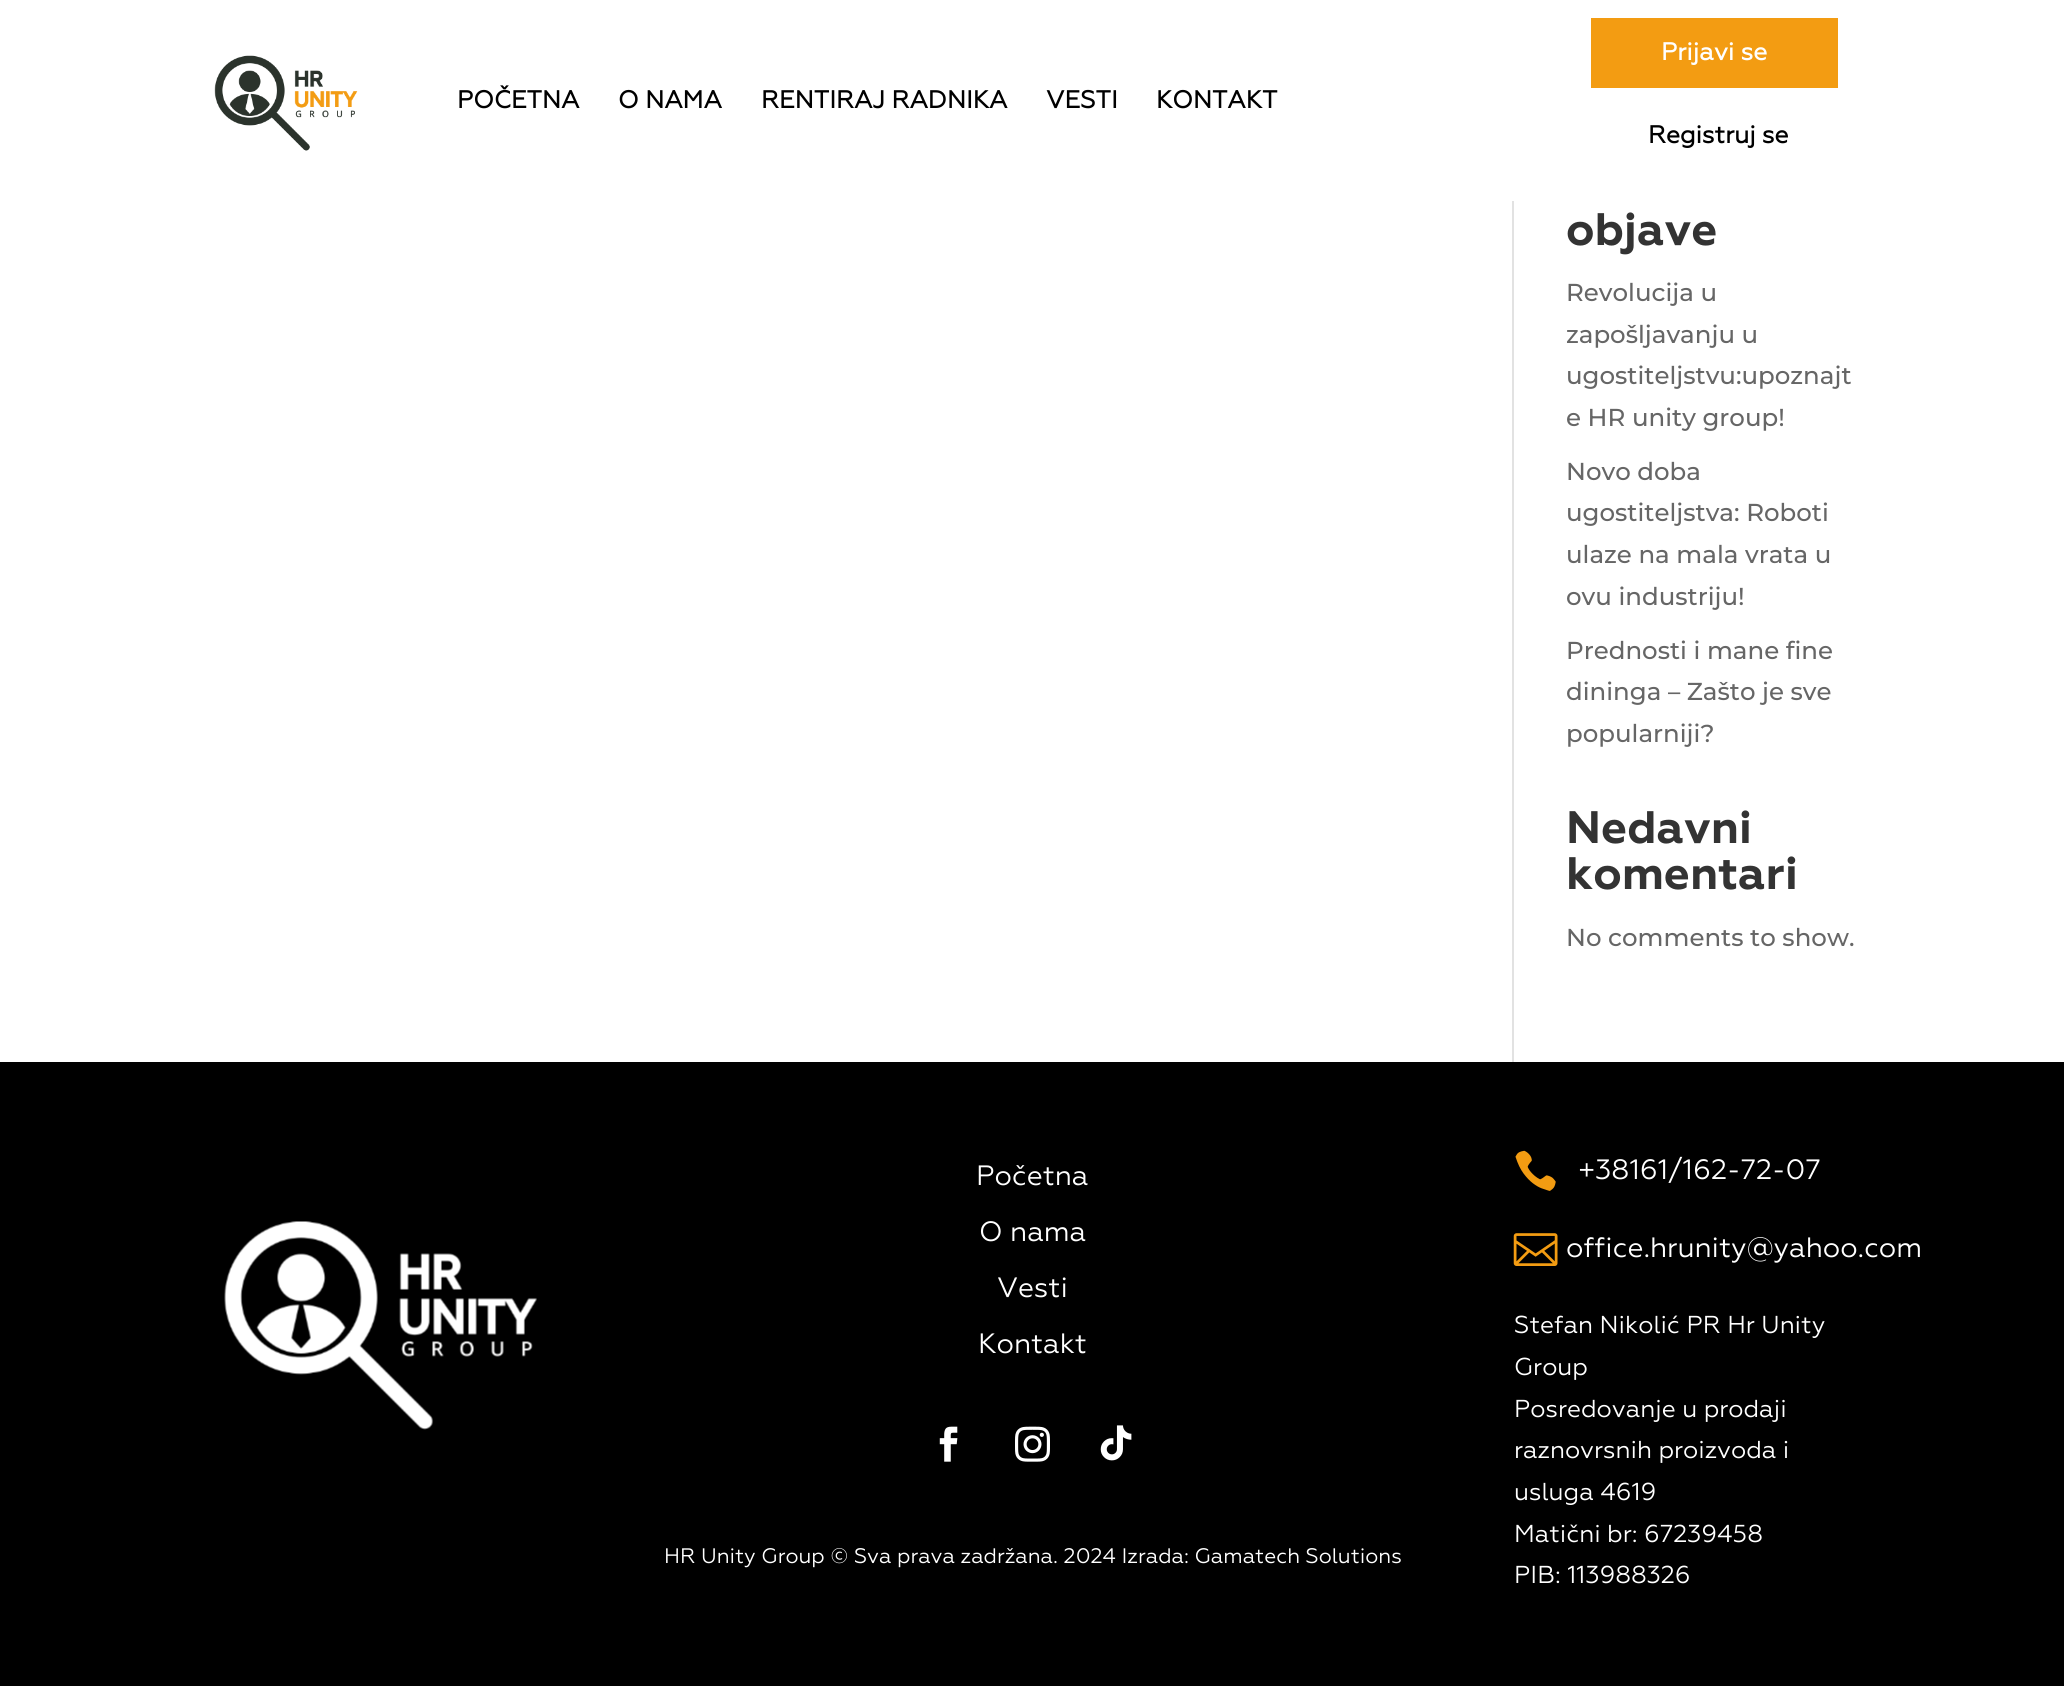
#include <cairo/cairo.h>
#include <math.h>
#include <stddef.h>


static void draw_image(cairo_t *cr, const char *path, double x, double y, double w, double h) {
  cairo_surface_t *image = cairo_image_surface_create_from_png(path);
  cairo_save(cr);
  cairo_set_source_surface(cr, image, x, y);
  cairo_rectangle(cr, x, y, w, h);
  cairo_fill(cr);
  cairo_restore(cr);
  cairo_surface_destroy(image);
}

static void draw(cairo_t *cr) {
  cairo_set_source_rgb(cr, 1, 1, 1);
  cairo_paint(cr);
  draw_image(cr, "images/1.png", 214, 55, 144, 96);
  cairo_set_source_rgb(cr, 243 / 255.0, 156 / 255.0, 18 / 255.0);
  cairo_rectangle(cr, 1591, 18, 247, 70);
  cairo_fill(cr);
  cairo_set_source_rgb(cr, 226 / 255.0, 226 / 255.0, 226 / 255.0);
  cairo_rectangle(cr, 1512, 201, 2, 861);
  cairo_fill(cr);
  cairo_set_source_rgb(cr, 0, 0, 0);
  cairo_rectangle(cr, 0, 1062, 2064, 624);
  cairo_fill(cr);
  draw_image(cr, "images/2.png", 224, 1221, 313, 209);
  draw_image(cr, "images/3.png", 939, 1426, 19, 36);
  draw_image(cr, "images/4.png", 1015, 1426, 35, 36);
  draw_image(cr, "images/5.png", 1100, 1425, 32, 36);
  draw_image(cr, "images/6.png", 1515, 1150, 41, 41);
  draw_image(cr, "images/7.png", 1513, 1233, 45, 33);
  cairo_select_font_face(cr, "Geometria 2", CAIRO_FONT_SLANT_NORMAL, CAIRO_FONT_WEIGHT_BOLD);
  cairo_set_font_size(cr, 24.5);
  cairo_move_to(cr, 457, 108);
  cairo_show_text(cr, "POČETNA");
  cairo_move_to(cr, 618, 108);
  cairo_show_text(cr, "O NAMA");
  cairo_move_to(cr, 761, 108);
  cairo_show_text(cr, "RENTIRAJ RADNIKA");
  cairo_move_to(cr, 1046, 108);
  cairo_show_text(cr, "VESTI");
  cairo_move_to(cr, 1156, 108);
  cairo_show_text(cr, "KONTAKT");
  cairo_set_source_rgb(cr, 1, 1, 1);
  cairo_move_to(cr, 1661, 60);
  cairo_show_text(cr, "Prijavi se");
  cairo_set_source_rgb(cr, 0, 0, 0);
  cairo_move_to(cr, 1648, 143);
  cairo_show_text(cr, "Registruj se");
  cairo_select_font_face(cr, "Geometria", CAIRO_FONT_SLANT_NORMAL, CAIRO_FONT_WEIGHT_BOLD);
  cairo_set_font_size(cr, 45.5);
  cairo_set_source_rgb(cr, 51 / 255.0, 51 / 255.0, 51 / 255.0);
  cairo_move_to(cr, 1566, 245);
  cairo_show_text(cr, "objave");
  cairo_select_font_face(cr, "Montserrat Thin", CAIRO_FONT_SLANT_NORMAL, CAIRO_FONT_WEIGHT_NORMAL);
  cairo_set_font_size(cr, 24.5);
  cairo_set_source_rgb(cr, 102 / 255.0, 102 / 255.0, 102 / 255.0);
  cairo_move_to(cr, 1566, 301);
  cairo_show_text(cr, "Revolucija u");
  cairo_move_to(cr, 1566, 343);
  cairo_show_text(cr, "zapošljavanju u");
  cairo_move_to(cr, 1566, 384);
  cairo_show_text(cr, "ugostiteljstvu:upoznajt");
  cairo_move_to(cr, 1566, 426);
  cairo_show_text(cr, "e HR unity group!");
  cairo_move_to(cr, 1566, 480);
  cairo_show_text(cr, "Novo doba");
  cairo_move_to(cr, 1566, 521);
  cairo_show_text(cr, "ugostiteljstva: Roboti");
  cairo_move_to(cr, 1566, 563);
  cairo_show_text(cr, "ulaze na mala vrata u");
  cairo_move_to(cr, 1566, 605);
  cairo_show_text(cr, "ovu industriju!");
  cairo_move_to(cr, 1566, 659);
  cairo_show_text(cr, "Prednosti i mane fine");
  cairo_move_to(cr, 1566, 700);
  cairo_show_text(cr, "dininga – Zašto je sve");
  cairo_move_to(cr, 1566, 742);
  cairo_show_text(cr, "popularniji?");
  cairo_select_font_face(cr, "Geometria", CAIRO_FONT_SLANT_NORMAL, CAIRO_FONT_WEIGHT_BOLD);
  cairo_set_font_size(cr, 45.5);
  cairo_set_source_rgb(cr, 51 / 255.0, 51 / 255.0, 51 / 255.0);
  cairo_move_to(cr, 1566, 843);
  cairo_show_text(cr, "Nedavni");
  cairo_move_to(cr, 1566, 889);
  cairo_show_text(cr, "komentari");
  cairo_select_font_face(cr, "Montserrat Thin", CAIRO_FONT_SLANT_NORMAL, CAIRO_FONT_WEIGHT_NORMAL);
  cairo_set_font_size(cr, 24.5);
  cairo_set_source_rgb(cr, 102 / 255.0, 102 / 255.0, 102 / 255.0);
  cairo_move_to(cr, 1566, 946);
  cairo_show_text(cr, "No comments to show.");
  cairo_select_font_face(cr, "Geometria", CAIRO_FONT_SLANT_NORMAL, CAIRO_FONT_WEIGHT_NORMAL);
  cairo_set_font_size(cr, 28);
  cairo_set_source_rgb(cr, 1, 1, 1);
  cairo_move_to(cr, 976, 1185);
  cairo_show_text(cr, "Početna");
  cairo_move_to(cr, 979, 1241);
  cairo_show_text(cr, "O nama");
  cairo_move_to(cr, 997, 1297);
  cairo_show_text(cr, "Vesti");
  cairo_move_to(cr, 978, 1353);
  cairo_show_text(cr, "Kontakt");
  cairo_set_font_size(cr, 21);
  cairo_move_to(cr, 664, 1563);
  cairo_show_text(cr, "HR Unity Group © Sva prava zadržana. 2024 Izrada: Gamatech Solutions");
  cairo_set_font_size(cr, 28);
  cairo_move_to(cr, 1578, 1179);
  cairo_show_text(cr, "+38161/162-72-07");
  cairo_move_to(cr, 1566, 1257);
  cairo_show_text(cr, "office.hrunity@yahoo.com");
  cairo_set_font_size(cr, 24.5);
  cairo_move_to(cr, 1514, 1333);
  cairo_show_text(cr, "Stefan Nikolić PR Hr Unity");
  cairo_move_to(cr, 1514, 1375);
  cairo_show_text(cr, "Group");
  cairo_move_to(cr, 1514, 1417);
  cairo_show_text(cr, "Posredovanje u prodaji");
  cairo_move_to(cr, 1514, 1458);
  cairo_show_text(cr, "raznovrsnih proizvoda i");
  cairo_move_to(cr, 1514, 1500);
  cairo_show_text(cr, "usluga 4619");
  cairo_move_to(cr, 1514, 1542);
  cairo_show_text(cr, "Matični br: 67239458");
  cairo_move_to(cr, 1514, 1583);
  cairo_show_text(cr, "PIB: 113988326");
}

int main(void) {
  cairo_surface_t *surface = cairo_image_surface_create(CAIRO_FORMAT_RGB24, 2064, 1686);
  cairo_t *cr = cairo_create(surface);
  cairo_font_options_t *options = cairo_font_options_create();
  cairo_font_options_set_hint_metrics(options, CAIRO_HINT_METRICS_OFF);
  cairo_font_options_set_hint_style(options, CAIRO_HINT_STYLE_NONE);
  cairo_set_font_options(cr, options);
  cairo_set_miter_limit(cr, 4);
  draw(cr);
  cairo_surface_write_to_png(surface, "out.png");
  cairo_font_options_destroy(options);
  cairo_destroy(cr);
  cairo_surface_destroy(surface);
  return 0;
}
